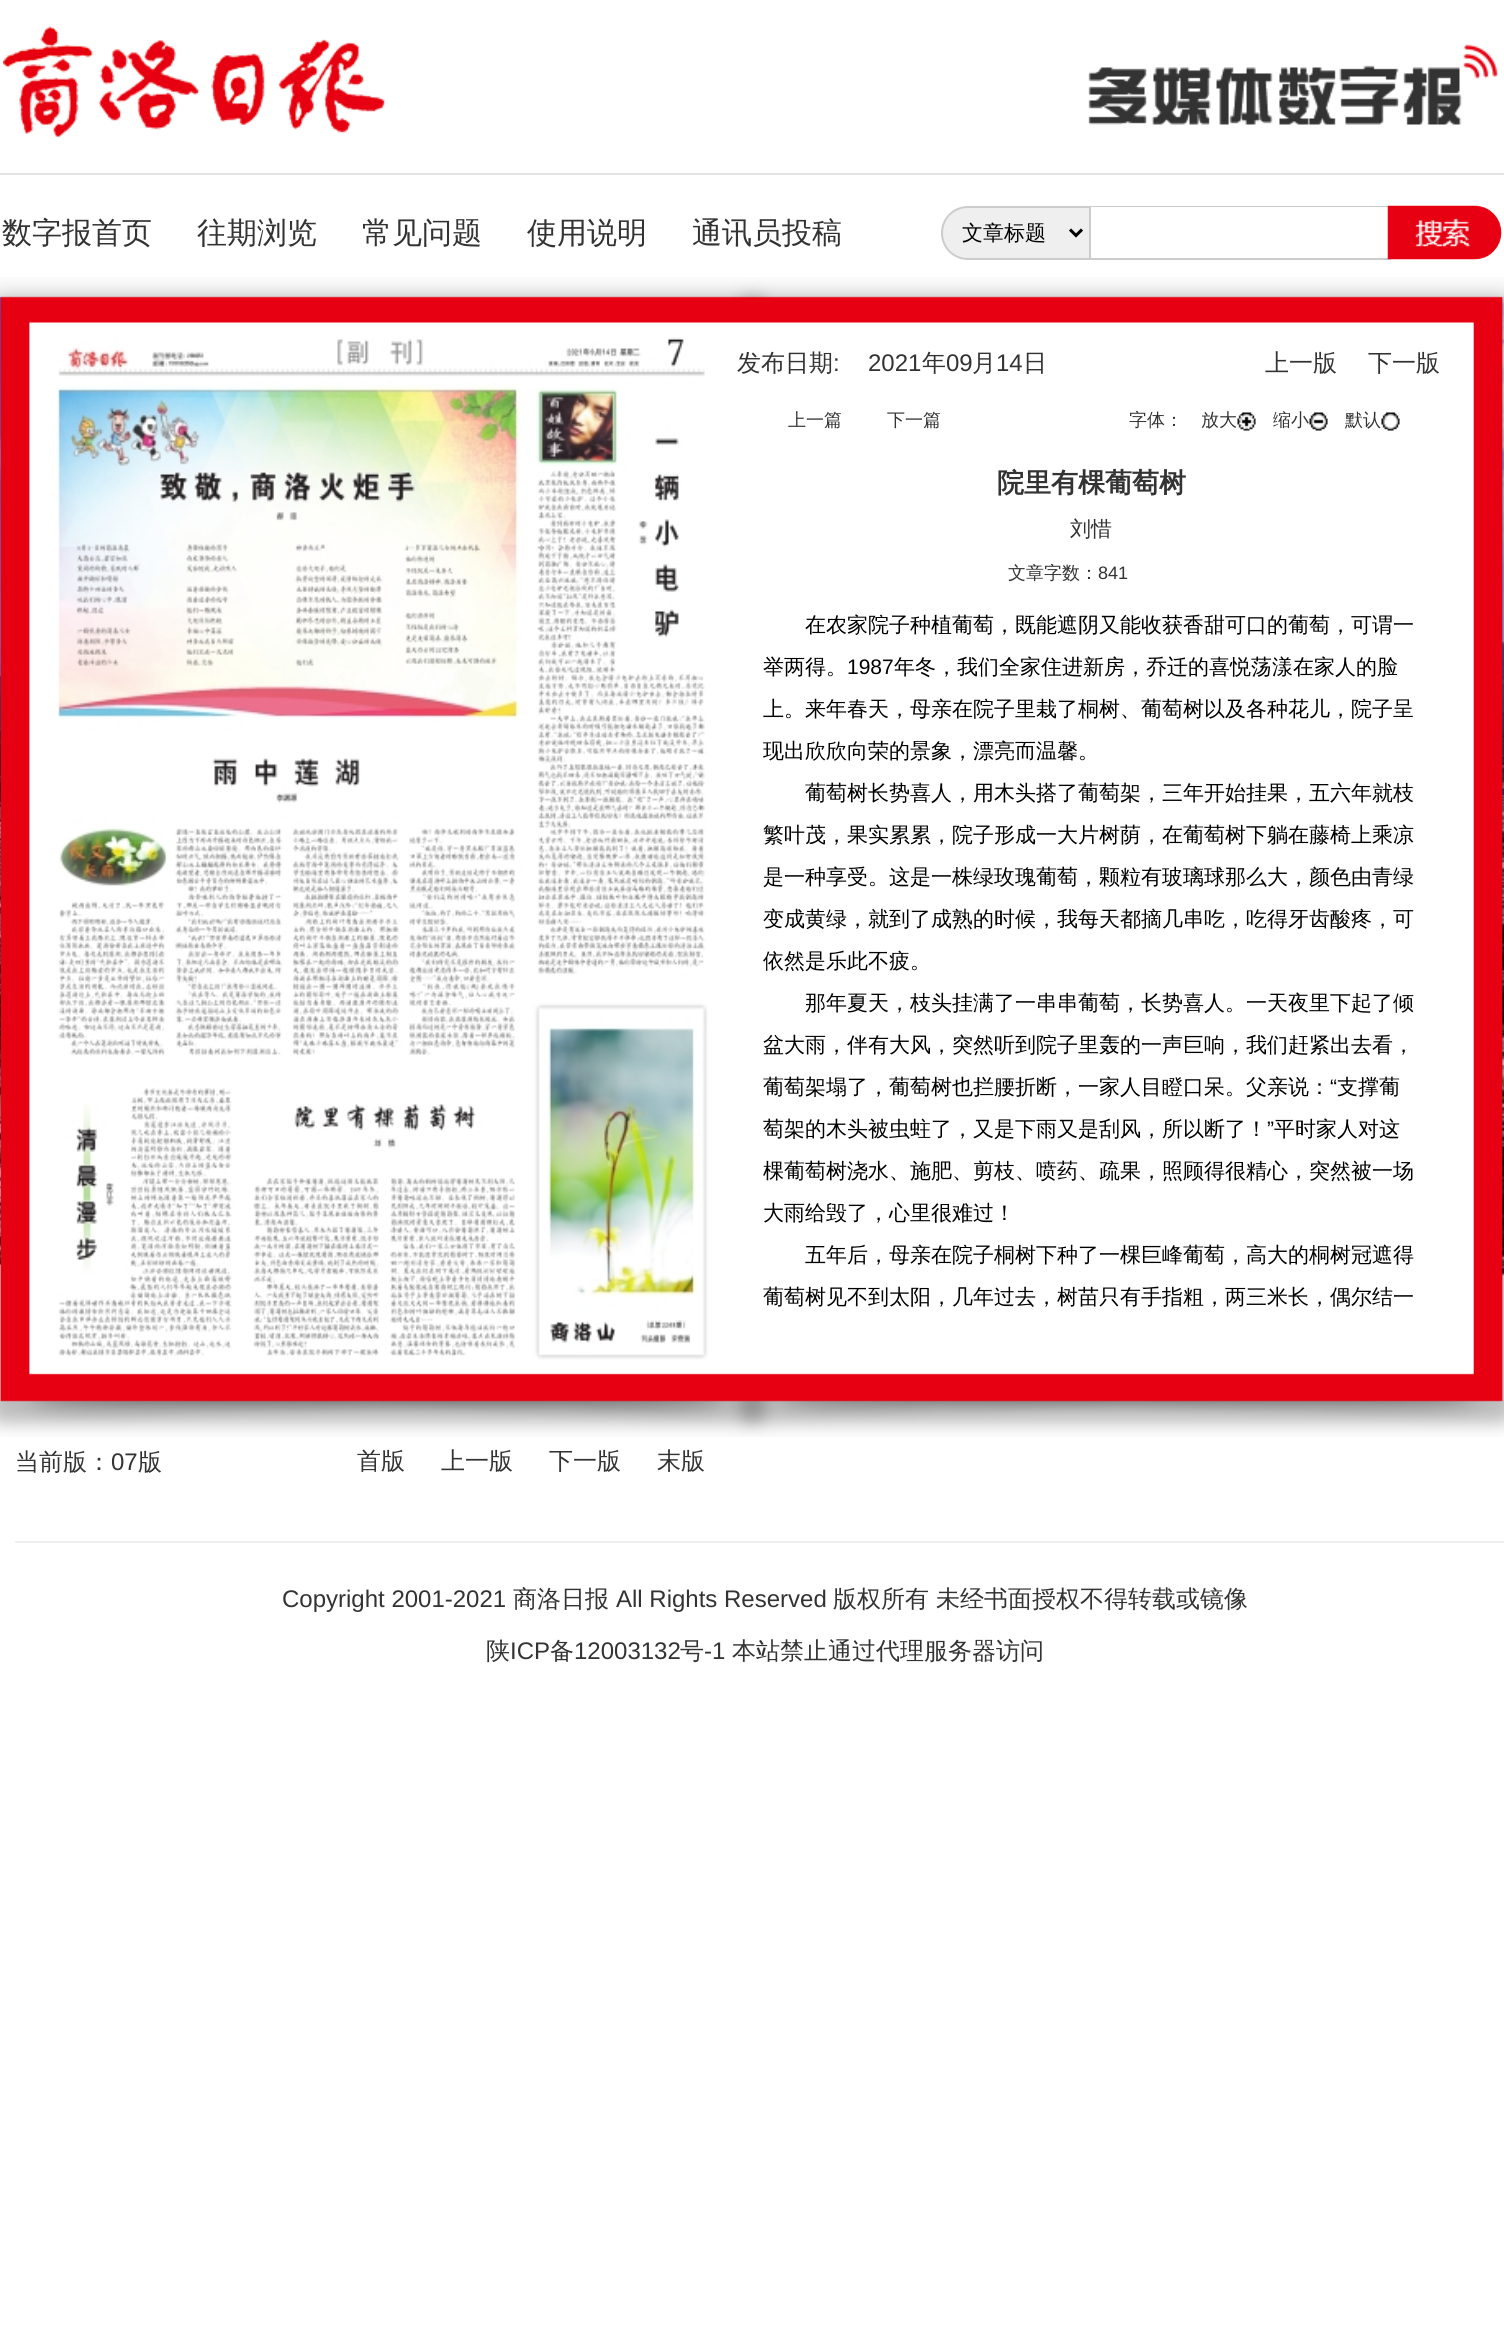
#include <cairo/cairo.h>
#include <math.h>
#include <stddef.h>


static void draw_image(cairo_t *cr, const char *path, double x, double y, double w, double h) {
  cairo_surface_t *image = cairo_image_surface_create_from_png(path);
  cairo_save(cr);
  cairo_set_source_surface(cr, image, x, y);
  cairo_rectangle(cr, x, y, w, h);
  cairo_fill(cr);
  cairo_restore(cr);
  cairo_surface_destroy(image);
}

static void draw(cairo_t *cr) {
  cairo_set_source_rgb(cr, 1, 1, 1);
  cairo_paint(cr);
  draw_image(cr, "images/1.png", 0, 277, 1504, 1160);
  draw_image(cr, "images/2.png", 3, 26, 382, 111);
  draw_image(cr, "images/3.png", 1088, 44, 410, 81);
  cairo_set_source_rgb(cr, 228 / 255.0, 228 / 255.0, 228 / 255.0);
  cairo_rectangle(cr, 0, 173, 1504, 2);
  cairo_fill(cr);
  cairo_set_source_rgb(cr, 239 / 255.0, 239 / 255.0, 239 / 255.0);
  cairo_new_path(cr);
  cairo_move_to(cr, 968, 207);
  cairo_line_to(cr, 1090, 207);
  cairo_line_to(cr, 1090, 259);
  cairo_line_to(cr, 968, 259);
  cairo_curve_to(cr, 953.5, 259, 942, 247.5, 942, 233);
  cairo_curve_to(cr, 942, 218.5, 953.5, 207, 968, 207);
  cairo_close_path(cr);
  cairo_fill_preserve(cr);
  cairo_set_source_rgb(cr, 204 / 255.0, 204 / 255.0, 204 / 255.0);
  cairo_stroke(cr);
  cairo_new_path(cr);
  cairo_move_to(cr, 1070, 229.5);
  cairo_line_to(cr, 1076, 235.5);
  cairo_line_to(cr, 1082, 229.5);
  cairo_set_source_rgb(cr, 0, 0, 0);
  cairo_set_line_width(cr, 3);
  cairo_stroke(cr);
  cairo_set_source_rgb(cr, 204 / 255.0, 204 / 255.0, 204 / 255.0);
  cairo_rectangle(cr, 1091, 206, 300, 1);
  cairo_fill(cr);
  cairo_rectangle(cr, 1091, 258, 300, 2);
  cairo_fill(cr);
  draw_image(cr, "images/4.png", 1387, 205, 115, 55);
  draw_image(cr, "images/5.png", 1237, 412, 19, 19);
  draw_image(cr, "images/6.png", 1309, 412, 19, 19);
  draw_image(cr, "images/7.png", 1381, 412, 19, 19);
  draw_image(cr, "images/8.png", 57, 337, 651, 1023);
  cairo_set_source_rgb(cr, 238 / 255.0, 238 / 255.0, 238 / 255.0);
  cairo_rectangle(cr, 15, 1541, 1489, 2);
  cairo_fill(cr);
  cairo_select_font_face(cr, "WenQuanYi Zen Hei Medium", CAIRO_FONT_SLANT_NORMAL, CAIRO_FONT_WEIGHT_NORMAL);
  cairo_set_font_size(cr, 30);
  cairo_set_source_rgb(cr, 51 / 255.0, 51 / 255.0, 51 / 255.0);
  cairo_move_to(cr, 2, 243);
  cairo_show_text(cr, "数字报首页");
  cairo_move_to(cr, 197, 243);
  cairo_show_text(cr, "往期浏览");
  cairo_move_to(cr, 362, 243);
  cairo_show_text(cr, "常见问题");
  cairo_move_to(cr, 527, 243);
  cairo_show_text(cr, "使用说明");
  cairo_move_to(cr, 692, 243);
  cairo_show_text(cr, "通讯员投稿");
  cairo_set_font_size(cr, 21);
  cairo_set_source_rgb(cr, 0, 0, 0);
  cairo_move_to(cr, 962, 240);
  cairo_show_text(cr, "文章标题");
  cairo_set_font_size(cr, 24);
  cairo_set_source_rgb(cr, 51 / 255.0, 51 / 255.0, 51 / 255.0);
  cairo_move_to(cr, 737, 371);
  cairo_show_text(cr, "发布日期");
  cairo_select_font_face(cr, "Liberation Sans", CAIRO_FONT_SLANT_NORMAL, CAIRO_FONT_WEIGHT_NORMAL);
  cairo_move_to(cr, 833, 371);
  cairo_show_text(cr, ":");
  cairo_move_to(cr, 868, 371);
  cairo_show_text(cr, "2021");
  cairo_select_font_face(cr, "WenQuanYi Zen Hei Medium", CAIRO_FONT_SLANT_NORMAL, CAIRO_FONT_WEIGHT_NORMAL);
  cairo_move_to(cr, 922, 371);
  cairo_show_text(cr, "年");
  cairo_select_font_face(cr, "Liberation Sans", CAIRO_FONT_SLANT_NORMAL, CAIRO_FONT_WEIGHT_NORMAL);
  cairo_move_to(cr, 946, 371);
  cairo_show_text(cr, "09");
  cairo_select_font_face(cr, "WenQuanYi Zen Hei Medium", CAIRO_FONT_SLANT_NORMAL, CAIRO_FONT_WEIGHT_NORMAL);
  cairo_move_to(cr, 972, 371);
  cairo_show_text(cr, "月");
  cairo_select_font_face(cr, "Liberation Sans", CAIRO_FONT_SLANT_NORMAL, CAIRO_FONT_WEIGHT_NORMAL);
  cairo_move_to(cr, 996, 371);
  cairo_show_text(cr, "14");
  cairo_select_font_face(cr, "WenQuanYi Zen Hei Medium", CAIRO_FONT_SLANT_NORMAL, CAIRO_FONT_WEIGHT_NORMAL);
  cairo_move_to(cr, 1023, 371);
  cairo_show_text(cr, "日");
  cairo_move_to(cr, 1265, 371);
  cairo_show_text(cr, "上一版");
  cairo_move_to(cr, 1368, 371);
  cairo_show_text(cr, "下一版");
  cairo_set_font_size(cr, 18);
  cairo_move_to(cr, 788, 426);
  cairo_show_text(cr, "上一篇");
  cairo_move_to(cr, 887, 426);
  cairo_show_text(cr, "下一篇");
  cairo_move_to(cr, 1129, 426);
  cairo_show_text(cr, "字体：");
  cairo_move_to(cr, 1201, 426);
  cairo_show_text(cr, "放大");
  cairo_move_to(cr, 1273, 426);
  cairo_show_text(cr, "缩小");
  cairo_move_to(cr, 1345, 426);
  cairo_show_text(cr, "默认");
  cairo_select_font_face(cr, "WenQuanYi Zen Hei", CAIRO_FONT_SLANT_NORMAL, CAIRO_FONT_WEIGHT_BOLD);
  cairo_set_font_size(cr, 27);
  cairo_move_to(cr, 997, 492);
  cairo_show_text(cr, "院里有棵葡萄树");
  cairo_select_font_face(cr, "WenQuanYi Zen Hei Medium", CAIRO_FONT_SLANT_NORMAL, CAIRO_FONT_WEIGHT_NORMAL);
  cairo_set_font_size(cr, 21);
  cairo_move_to(cr, 1070, 536);
  cairo_show_text(cr, "刘惜");
  cairo_set_font_size(cr, 18);
  cairo_move_to(cr, 1008, 579);
  cairo_show_text(cr, "文章字数：");
  cairo_select_font_face(cr, "Liberation Sans", CAIRO_FONT_SLANT_NORMAL, CAIRO_FONT_WEIGHT_NORMAL);
  cairo_move_to(cr, 1098, 579);
  cairo_show_text(cr, "841");
  cairo_select_font_face(cr, "WenQuanYi Zen Hei Medium", CAIRO_FONT_SLANT_NORMAL, CAIRO_FONT_WEIGHT_NORMAL);
  cairo_set_font_size(cr, 21);
  cairo_set_source_rgb(cr, 0, 0, 0);
  cairo_move_to(cr, 805, 632);
  cairo_show_text(cr, "在农家院子种植葡萄，既能遮阴又能收获香甜可口的葡萄，可谓一");
  cairo_move_to(cr, 763, 674);
  cairo_show_text(cr, "举两得。");
  cairo_select_font_face(cr, "Liberation Sans", CAIRO_FONT_SLANT_NORMAL, CAIRO_FONT_WEIGHT_NORMAL);
  cairo_move_to(cr, 847, 674);
  cairo_show_text(cr, "1987");
  cairo_select_font_face(cr, "WenQuanYi Zen Hei Medium", CAIRO_FONT_SLANT_NORMAL, CAIRO_FONT_WEIGHT_NORMAL);
  cairo_move_to(cr, 894, 674);
  cairo_show_text(cr, "年冬，我们全家住进新房，乔迁的喜悦荡漾在家人的脸");
  cairo_move_to(cr, 763, 716);
  cairo_show_text(cr, "上。来年春天，母亲在院子里栽了桐树、葡萄树以及各种花儿，院子呈");
  cairo_move_to(cr, 763, 758);
  cairo_show_text(cr, "现出欣欣向荣的景象，漂亮而温馨。");
  cairo_move_to(cr, 805, 800);
  cairo_show_text(cr, "葡萄树长势喜人，用木头搭了葡萄架，三年开始挂果，五六年就枝");
  cairo_move_to(cr, 763, 842);
  cairo_show_text(cr, "繁叶茂，果实累累，院子形成一大片树荫，在葡萄树下躺在藤椅上乘凉");
  cairo_move_to(cr, 763, 884);
  cairo_show_text(cr, "是一种享受。这是一株绿玫瑰葡萄，颗粒有玻璃球那么大，颜色由青绿");
  cairo_move_to(cr, 763, 926);
  cairo_show_text(cr, "变成黄绿，就到了成熟的时候，我每天都摘几串吃，吃得牙齿酸疼，可");
  cairo_move_to(cr, 763, 968);
  cairo_show_text(cr, "依然是乐此不疲。");
  cairo_move_to(cr, 805, 1010);
  cairo_show_text(cr, "那年夏天，枝头挂满了一串串葡萄，长势喜人。一天夜里下起了倾");
  cairo_move_to(cr, 763, 1052);
  cairo_show_text(cr, "盆大雨，伴有大风，突然听到院子里轰的一声巨响，我们赶紧出去看，");
  cairo_move_to(cr, 763, 1094);
  cairo_show_text(cr, "葡萄架塌了，葡萄树也拦腰折断，一家人目瞪口呆。父亲说：");
  cairo_select_font_face(cr, "Liberation Sans", CAIRO_FONT_SLANT_NORMAL, CAIRO_FONT_WEIGHT_NORMAL);
  cairo_move_to(cr, 1330, 1094);
  cairo_show_text(cr, "“");
  cairo_select_font_face(cr, "WenQuanYi Zen Hei Medium", CAIRO_FONT_SLANT_NORMAL, CAIRO_FONT_WEIGHT_NORMAL);
  cairo_move_to(cr, 1337, 1094);
  cairo_show_text(cr, "支撑葡");
  cairo_move_to(cr, 763, 1136);
  cairo_show_text(cr, "萄架的木头被虫蛀了，又是下雨又是刮风，所以断了！");
  cairo_select_font_face(cr, "Liberation Sans", CAIRO_FONT_SLANT_NORMAL, CAIRO_FONT_WEIGHT_NORMAL);
  cairo_move_to(cr, 1267, 1136);
  cairo_show_text(cr, "”");
  cairo_select_font_face(cr, "WenQuanYi Zen Hei Medium", CAIRO_FONT_SLANT_NORMAL, CAIRO_FONT_WEIGHT_NORMAL);
  cairo_move_to(cr, 1274, 1136);
  cairo_show_text(cr, "平时家人对这");
  cairo_move_to(cr, 763, 1178);
  cairo_show_text(cr, "棵葡萄树浇水、施肥、剪枝、喷药、疏果，照顾得很精心，突然被一场");
  cairo_move_to(cr, 763, 1220);
  cairo_show_text(cr, "大雨给毁了，心里很难过！");
  cairo_move_to(cr, 805, 1262);
  cairo_show_text(cr, "五年后，母亲在院子桐树下种了一棵巨峰葡萄，高大的桐树冠遮得");
  cairo_move_to(cr, 763, 1304);
  cairo_show_text(cr, "葡萄树见不到太阳，几年过去，树苗只有手指粗，两三米长，偶尔结一");
  cairo_set_font_size(cr, 24);
  cairo_set_source_rgb(cr, 51 / 255.0, 51 / 255.0, 51 / 255.0);
  cairo_move_to(cr, 15, 1470);
  cairo_show_text(cr, "当前版：");
  cairo_select_font_face(cr, "Liberation Sans", CAIRO_FONT_SLANT_NORMAL, CAIRO_FONT_WEIGHT_NORMAL);
  cairo_move_to(cr, 111, 1470);
  cairo_show_text(cr, "07");
  cairo_select_font_face(cr, "WenQuanYi Zen Hei Medium", CAIRO_FONT_SLANT_NORMAL, CAIRO_FONT_WEIGHT_NORMAL);
  cairo_move_to(cr, 138, 1470);
  cairo_show_text(cr, "版");
  cairo_move_to(cr, 357, 1469);
  cairo_show_text(cr, "首版");
  cairo_move_to(cr, 441, 1469);
  cairo_show_text(cr, "上一版");
  cairo_move_to(cr, 549, 1469);
  cairo_show_text(cr, "下一版");
  cairo_move_to(cr, 657, 1469);
  cairo_show_text(cr, "末版");
  cairo_select_font_face(cr, "Liberation Sans", CAIRO_FONT_SLANT_NORMAL, CAIRO_FONT_WEIGHT_NORMAL);
  cairo_move_to(cr, 282, 1607);
  cairo_show_text(cr, "Copyright 2001-2021");
  cairo_select_font_face(cr, "WenQuanYi Zen Hei Medium", CAIRO_FONT_SLANT_NORMAL, CAIRO_FONT_WEIGHT_NORMAL);
  cairo_move_to(cr, 513, 1607);
  cairo_show_text(cr, "商洛日报");
  cairo_select_font_face(cr, "Liberation Sans", CAIRO_FONT_SLANT_NORMAL, CAIRO_FONT_WEIGHT_NORMAL);
  cairo_move_to(cr, 616, 1607);
  cairo_show_text(cr, "All Rights Reserved");
  cairo_select_font_face(cr, "WenQuanYi Zen Hei Medium", CAIRO_FONT_SLANT_NORMAL, CAIRO_FONT_WEIGHT_NORMAL);
  cairo_move_to(cr, 833, 1607);
  cairo_show_text(cr, "版权所有");
  cairo_move_to(cr, 936, 1607);
  cairo_show_text(cr, "未经书面授权不得转载或镜像");
  cairo_move_to(cr, 486, 1659);
  cairo_show_text(cr, "陕");
  cairo_select_font_face(cr, "Liberation Sans", CAIRO_FONT_SLANT_NORMAL, CAIRO_FONT_WEIGHT_NORMAL);
  cairo_move_to(cr, 510, 1659);
  cairo_show_text(cr, "ICP");
  cairo_select_font_face(cr, "WenQuanYi Zen Hei Medium", CAIRO_FONT_SLANT_NORMAL, CAIRO_FONT_WEIGHT_NORMAL);
  cairo_move_to(cr, 550, 1659);
  cairo_show_text(cr, "备");
  cairo_select_font_face(cr, "Liberation Sans", CAIRO_FONT_SLANT_NORMAL, CAIRO_FONT_WEIGHT_NORMAL);
  cairo_move_to(cr, 574, 1659);
  cairo_show_text(cr, "12003132");
  cairo_select_font_face(cr, "WenQuanYi Zen Hei Medium", CAIRO_FONT_SLANT_NORMAL, CAIRO_FONT_WEIGHT_NORMAL);
  cairo_move_to(cr, 680, 1659);
  cairo_show_text(cr, "号");
  cairo_select_font_face(cr, "Liberation Sans", CAIRO_FONT_SLANT_NORMAL, CAIRO_FONT_WEIGHT_NORMAL);
  cairo_move_to(cr, 704, 1659);
  cairo_show_text(cr, "-1");
  cairo_select_font_face(cr, "WenQuanYi Zen Hei Medium", CAIRO_FONT_SLANT_NORMAL, CAIRO_FONT_WEIGHT_NORMAL);
  cairo_move_to(cr, 732, 1659);
  cairo_show_text(cr, "本站禁止通过代理服务器访问");
}

int main(void) {
  cairo_surface_t *surface = cairo_image_surface_create(CAIRO_FORMAT_RGB24, 1504, 2344);
  cairo_t *cr = cairo_create(surface);
  cairo_font_options_t *options = cairo_font_options_create();
  cairo_font_options_set_hint_metrics(options, CAIRO_HINT_METRICS_OFF);
  cairo_font_options_set_hint_style(options, CAIRO_HINT_STYLE_NONE);
  cairo_set_font_options(cr, options);
  cairo_set_miter_limit(cr, 4);
  draw(cr);
  cairo_surface_write_to_png(surface, "out.png");
  cairo_font_options_destroy(options);
  cairo_destroy(cr);
  cairo_surface_destroy(surface);
  return 0;
}
